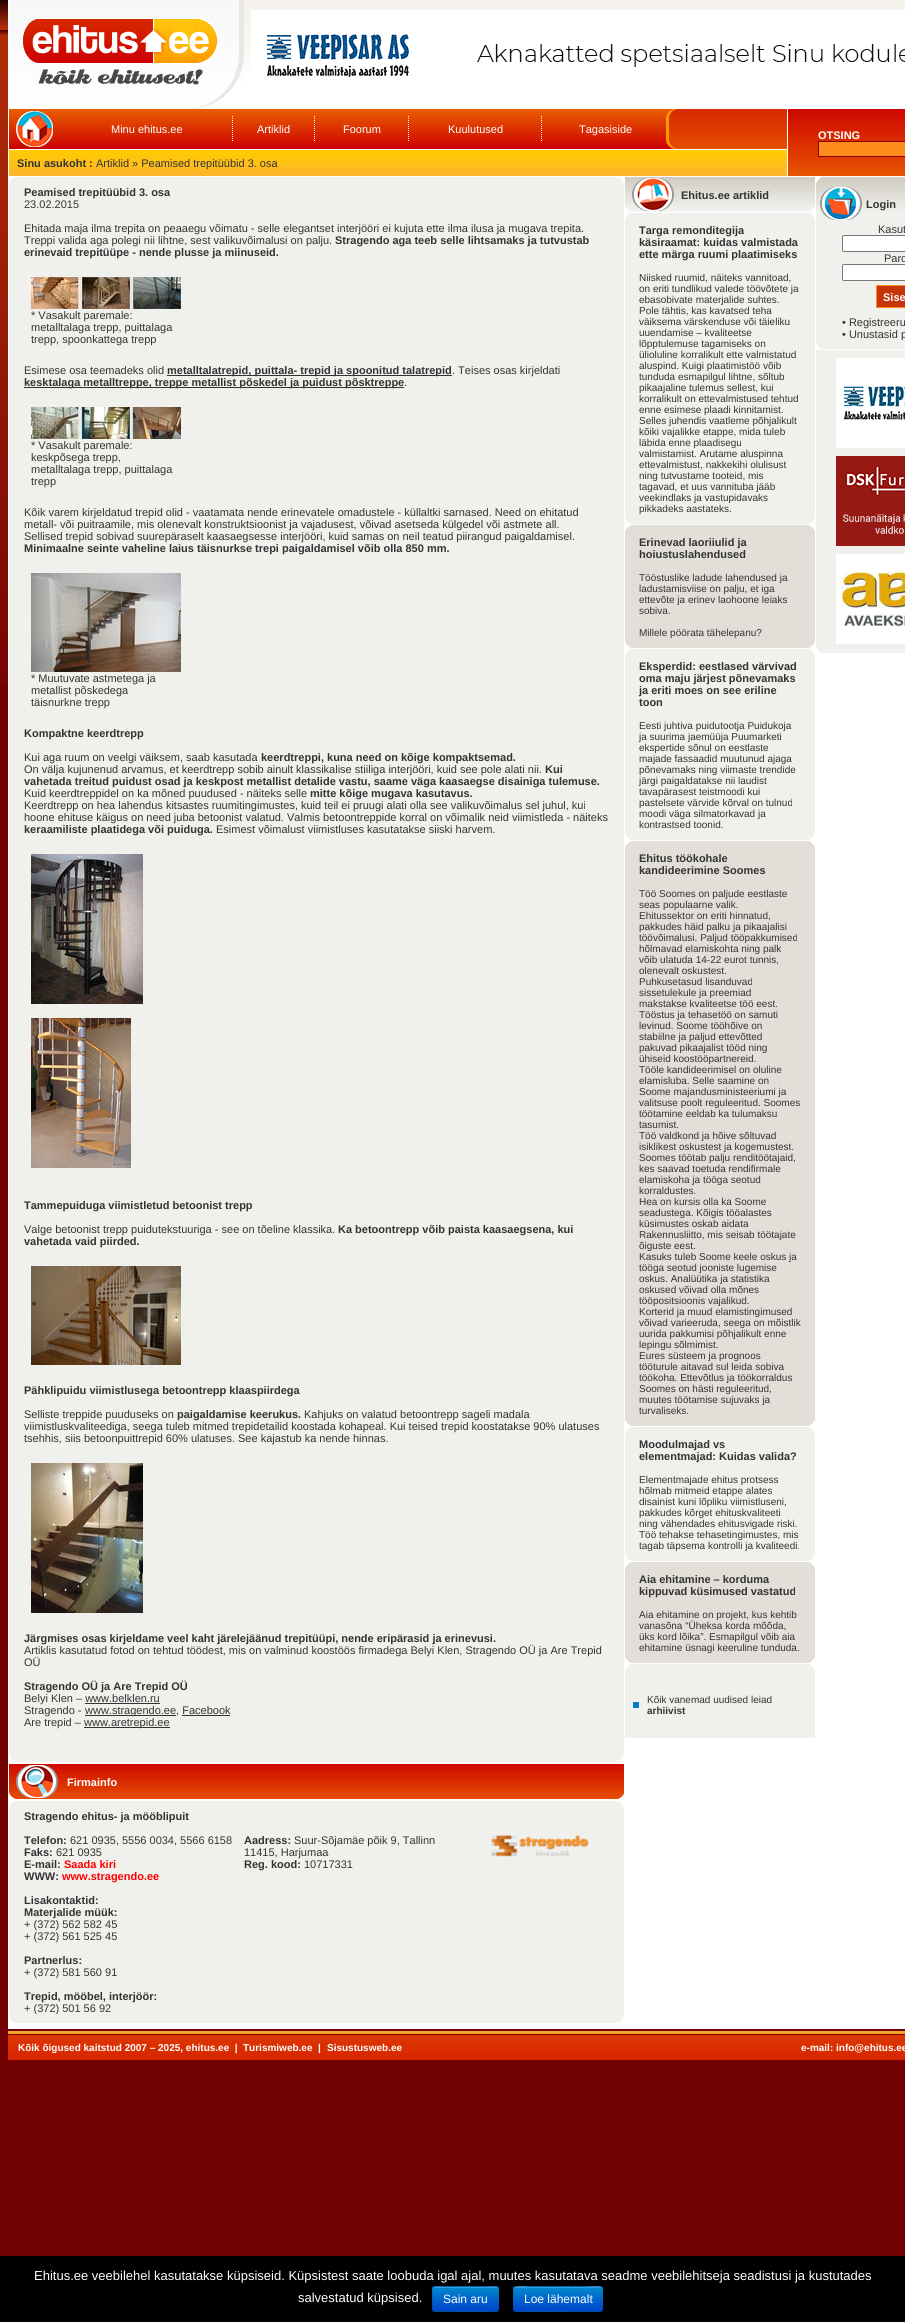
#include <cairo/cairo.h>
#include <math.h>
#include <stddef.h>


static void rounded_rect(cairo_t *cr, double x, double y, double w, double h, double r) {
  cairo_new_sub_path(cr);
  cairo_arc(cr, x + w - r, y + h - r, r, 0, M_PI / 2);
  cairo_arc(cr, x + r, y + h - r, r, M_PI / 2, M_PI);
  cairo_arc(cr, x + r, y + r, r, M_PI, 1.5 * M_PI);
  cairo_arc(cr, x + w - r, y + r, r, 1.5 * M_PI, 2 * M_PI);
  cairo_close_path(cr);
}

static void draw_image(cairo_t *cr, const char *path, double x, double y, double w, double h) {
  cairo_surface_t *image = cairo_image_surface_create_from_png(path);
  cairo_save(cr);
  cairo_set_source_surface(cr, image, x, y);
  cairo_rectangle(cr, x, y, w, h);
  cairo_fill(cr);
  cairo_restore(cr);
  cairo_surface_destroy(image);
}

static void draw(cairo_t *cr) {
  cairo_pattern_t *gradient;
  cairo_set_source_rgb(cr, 114 / 255.0, 2 / 255.0, 1 / 255.0);
  cairo_paint(cr);
  draw_image(cr, "images/1.png", 0, 0, 8, 685);
  cairo_set_source_rgb(cr, 1, 1, 1);
  cairo_rectangle(cr, 8, 0, 897, 2029);
  cairo_fill(cr);
  draw_image(cr, "images/2.png", 9, 0, 235, 109);
  draw_image(cr, "images/3.png", 244, 0, 661, 72);
  draw_image(cr, "images/4.png", 251, 10, 654, 67);
  draw_image(cr, "images/5.png", 677, 109, 110, 40);
  draw_image(cr, "images/6.png", 9, 109, 657, 40);
  draw_image(cr, "images/7.png", 16, 111, 37, 36);
  draw_image(cr, "images/8.png", 232, 116, 1, 25);
  draw_image(cr, "images/8.png", 314, 116, 1, 25);
  draw_image(cr, "images/8.png", 408, 116, 1, 25);
  draw_image(cr, "images/8.png", 541, 116, 1, 25);
  draw_image(cr, "images/9.png", 666, 109, 11, 40);
  draw_image(cr, "images/10.png", 9, 150, 778, 26);
  draw_image(cr, "images/11.png", 788, 109, 117, 67);
  cairo_set_source_rgb(cr, 1, 141 / 255.0, 30 / 255.0);
  cairo_rectangle(cr, 818.5, 141.5, 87, 15);
  cairo_fill_preserve(cr);
  cairo_set_source_rgb(cr, 136 / 255.0, 2 / 255.0, 1 / 255.0);
  cairo_set_line_width(cr, 1);
  cairo_stroke(cr);
  cairo_set_source_rgb(cr, 240 / 255.0, 241 / 255.0, 236 / 255.0);
  cairo_rectangle(cr, 9, 185, 615, 1577);
  cairo_fill(cr);
  draw_image(cr, "images/12.png", 9, 177, 615, 8);
  draw_image(cr, "images/13.png", 31, 277, 150, 32);
  cairo_set_source_rgb(cr, 51 / 255.0, 51 / 255.0, 51 / 255.0);
  cairo_rectangle(cr, 167, 375, 285, 1);
  cairo_fill(cr);
  cairo_rectangle(cr, 24, 387, 380, 1);
  cairo_fill(cr);
  draw_image(cr, "images/14.png", 31, 407, 150, 32);
  draw_image(cr, "images/15.png", 31, 573, 150, 99);
  draw_image(cr, "images/16.png", 31, 854, 112, 150);
  draw_image(cr, "images/17.png", 31, 1018, 100, 150);
  draw_image(cr, "images/18.png", 31, 1266, 150, 99);
  draw_image(cr, "images/19.png", 31, 1463, 112, 150);
  cairo_rectangle(cr, 85, 1703, 75, 1);
  cairo_fill(cr);
  cairo_rectangle(cr, 85, 1715, 91, 1);
  cairo_fill(cr);
  cairo_rectangle(cr, 182, 1715, 48, 1);
  cairo_fill(cr);
  cairo_rectangle(cr, 84, 1727, 86, 1);
  cairo_fill(cr);
  draw_image(cr, "images/20.png", 9, 1753, 615, 8);
  draw_image(cr, "images/21.png", 9, 1764, 7, 35);
  draw_image(cr, "images/22.png", 16, 1764, 51, 35);
  draw_image(cr, "images/23.png", 16, 1765, 42, 33);
  draw_image(cr, "images/24.png", 67, 1764, 550, 35);
  draw_image(cr, "images/25.png", 617, 1764, 7, 35);
  cairo_set_source_rgb(cr, 240 / 255.0, 241 / 255.0, 236 / 255.0);
  cairo_rectangle(cr, 9, 1809, 615, 205);
  cairo_fill(cr);
  draw_image(cr, "images/12.png", 9, 1801, 615, 8);
  draw_image(cr, "images/26.png", 491, 1835, 98, 22);
  draw_image(cr, "images/28.png", 625, 177, 190, 35);
  draw_image(cr, "images/29.png", 632, 178, 42, 33);
  draw_image(cr, "images/30.png", 625, 213, 190, 7);
  cairo_rectangle(cr, 625, 220, 190, 298);
  cairo_fill(cr);
  draw_image(cr, "images/31.png", 625, 518, 190, 6);
  draw_image(cr, "images/32.png", 625, 525, 190, 7);
  cairo_set_source_rgb(cr, 226 / 255.0, 223 / 255.0, 216 / 255.0);
  cairo_rectangle(cr, 625, 532, 190, 110);
  cairo_fill(cr);
  draw_image(cr, "images/33.png", 625, 642, 190, 6);
  draw_image(cr, "images/30.png", 625, 649, 190, 7);
  cairo_set_source_rgb(cr, 240 / 255.0, 241 / 255.0, 236 / 255.0);
  cairo_rectangle(cr, 625, 656, 190, 178);
  cairo_fill(cr);
  draw_image(cr, "images/31.png", 625, 834, 190, 6);
  draw_image(cr, "images/32.png", 625, 841, 190, 7);
  cairo_set_source_rgb(cr, 226 / 255.0, 223 / 255.0, 216 / 255.0);
  cairo_rectangle(cr, 625, 848, 190, 572);
  cairo_fill(cr);
  draw_image(cr, "images/33.png", 625, 1420, 190, 6);
  draw_image(cr, "images/30.png", 625, 1427, 190, 7);
  cairo_set_source_rgb(cr, 240 / 255.0, 241 / 255.0, 236 / 255.0);
  cairo_rectangle(cr, 625, 1434, 190, 121);
  cairo_fill(cr);
  draw_image(cr, "images/31.png", 625, 1555, 190, 6);
  draw_image(cr, "images/32.png", 625, 1562, 190, 7);
  cairo_set_source_rgb(cr, 226 / 255.0, 223 / 255.0, 216 / 255.0);
  cairo_rectangle(cr, 625, 1569, 190, 88);
  cairo_fill(cr);
  draw_image(cr, "images/33.png", 625, 1657, 190, 6);
  draw_image(cr, "images/30.png", 625, 1664, 190, 7);
  cairo_set_source_rgb(cr, 240 / 255.0, 241 / 255.0, 236 / 255.0);
  cairo_rectangle(cr, 625, 1671, 190, 67);
  cairo_fill(cr);
  cairo_set_source_rgb(cr, 0, 126 / 255.0, 198 / 255.0);
  cairo_rectangle(cr, 633, 1702, 6, 6);
  cairo_fill(cr);
  draw_image(cr, "images/34.png", 816, 177, 89, 7);
  draw_image(cr, "images/35.png", 816, 184, 50, 39);
  draw_image(cr, "images/36.png", 820, 187, 42, 33);
  draw_image(cr, "images/37.png", 866, 184, 39, 39);
  cairo_set_source_rgb(cr, 240 / 255.0, 240 / 255.0, 237 / 255.0);
  cairo_rectangle(cr, 816, 223, 89, 117);
  cairo_fill(cr);
  cairo_set_source_rgb(cr, 1, 1, 1);
  rounded_rect(cr, 842.5, 235.5, 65, 16, 1.5);
  cairo_fill_preserve(cr);
  cairo_set_source_rgb(cr, 118 / 255.0, 118 / 255.0, 118 / 255.0);
  cairo_stroke(cr);
  cairo_set_source_rgb(cr, 1, 1, 1);
  rounded_rect(cr, 842.5, 264.5, 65, 16, 1.5);
  cairo_fill_preserve(cr);
  cairo_set_source_rgb(cr, 118 / 255.0, 118 / 255.0, 118 / 255.0);
  cairo_stroke(cr);
  cairo_set_source_rgb(cr, 200 / 255.0, 52 / 255.0, 10 / 255.0);
  cairo_rectangle(cr, 876.5, 285.5, 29, 22);
  cairo_fill_preserve(cr);
  cairo_set_source_rgb(cr, 1, 141 / 255.0, 30 / 255.0);
  cairo_stroke(cr);
  cairo_set_source_rgb(cr, 240 / 255.0, 240 / 255.0, 237 / 255.0);
  cairo_rectangle(cr, 816, 350, 89, 294);
  cairo_fill(cr);
  draw_image(cr, "images/39.png", 836, 358, 69, 90);
  draw_image(cr, "images/40.png", 836, 456, 69, 90);
  draw_image(cr, "images/41.png", 836, 554, 69, 90);
  draw_image(cr, "images/38.png", 816, 644, 89, 9);
  cairo_set_source_rgb(cr, 247 / 255.0, 165 / 255.0, 39 / 255.0);
  cairo_rectangle(cr, 8, 2031, 897, 3);
  cairo_fill(cr);
  draw_image(cr, "images/42.png", 8, 2035, 489, 25);
  draw_image(cr, "images/43.png", 497, 2035, 408, 25);
  cairo_set_source_rgb(cr, 0, 0, 0);
  cairo_rectangle(cr, 0, 2256, 905, 66);
  cairo_fill(cr);
  cairo_set_source_rgb(cr, 0, 109 / 255.0, 204 / 255.0);
  rounded_rect(cr, 432, 2286, 67, 26, 3);
  cairo_fill(cr);
  cairo_save(cr);
  rounded_rect(cr, 432, 2286, 67, 26, 3);
  cairo_clip(cr);
  gradient = cairo_pattern_create_linear(466, 2287, 466, 2311);
  cairo_pattern_add_color_stop_rgba(gradient, 0, 0, 136 / 255.0, 204 / 255.0, 1);
  cairo_pattern_add_color_stop_rgba(gradient, 1, 0, 68 / 255.0, 204 / 255.0, 1);
  cairo_set_source(cr, gradient);
  cairo_pattern_destroy(gradient);
  cairo_rectangle(cr, 432, 2287, 67, 24);
  cairo_fill(cr);
  cairo_restore(cr);
  cairo_set_source_rgba(cr, 1, 1, 1, 0.2);
  cairo_new_path(cr);
  cairo_move_to(cr, 435, 2288);
  cairo_line_to(cr, 497, 2288);
  cairo_line_to(cr, 498, 2290);
  cairo_curve_to(cr, 498, 2284, 490, 2287, 486, 2287);
  cairo_line_to(cr, 445, 2287);
  cairo_curve_to(cr, 441, 2287, 433, 2284, 433, 2290);
  cairo_curve_to(cr, 433, 2289, 434, 2288, 435, 2288);
  cairo_close_path(cr);
  cairo_fill(cr);
  cairo_new_path(cr);
  cairo_move_to(cr, 498, 2311);
  cairo_line_to(cr, 497.5, 2311);
  cairo_curve_to(cr, 495.5, 2312.5, 451, 2311.5, 445, 2311.5);
  cairo_line_to(cr, 435, 2311.5);
  cairo_line_to(cr, 433, 2311);
  cairo_set_source_rgba(cr, 0, 0, 0, 0.25);
  cairo_stroke(cr);
  cairo_new_path(cr);
  cairo_move_to(cr, 433, 2311);
  cairo_curve_to(cr, 431.5, 2309, 432.5, 2301.5, 432.5, 2299);
  cairo_curve_to(cr, 432.5, 2284.5, 430, 2286.5, 445, 2286.5);
  cairo_line_to(cr, 486, 2286.5);
  cairo_curve_to(cr, 501, 2286.5, 498.5, 2284.5, 498.5, 2299);
  cairo_curve_to(cr, 498.5, 2301.5, 499.5, 2309, 498, 2311);
  cairo_set_source_rgba(cr, 0, 0, 0, 0.1);
  cairo_stroke(cr);
  cairo_set_source_rgb(cr, 0, 109 / 255.0, 204 / 255.0);
  rounded_rect(cr, 513, 2286, 90, 26, 3);
  cairo_fill(cr);
  cairo_save(cr);
  rounded_rect(cr, 513, 2286, 90, 26, 3);
  cairo_clip(cr);
  gradient = cairo_pattern_create_linear(558, 2287, 558, 2311);
  cairo_pattern_add_color_stop_rgba(gradient, 0, 0, 136 / 255.0, 204 / 255.0, 1);
  cairo_pattern_add_color_stop_rgba(gradient, 1, 0, 68 / 255.0, 204 / 255.0, 1);
  cairo_set_source(cr, gradient);
  cairo_pattern_destroy(gradient);
  cairo_rectangle(cr, 513, 2287, 90, 24);
  cairo_fill(cr);
  cairo_restore(cr);
  cairo_set_source_rgba(cr, 1, 1, 1, 0.2);
  cairo_new_path(cr);
  cairo_move_to(cr, 516, 2288);
  cairo_line_to(cr, 600, 2288);
  cairo_curve_to(cr, 601, 2288, 602, 2289, 602, 2290);
  cairo_curve_to(cr, 602, 2283, 588, 2287, 586, 2287);
  cairo_line_to(cr, 530, 2287);
  cairo_curve_to(cr, 528, 2287, 514, 2283, 514, 2290);
  cairo_curve_to(cr, 514, 2289, 515, 2288, 516, 2288);
  cairo_close_path(cr);
  cairo_fill(cr);
  cairo_new_path(cr);
  cairo_move_to(cr, 602, 2311);
  cairo_line_to(cr, 600, 2311.5);
  cairo_line_to(cr, 586, 2311.5);
  cairo_curve_to(cr, 578.5, 2311.5, 516.5, 2312.5, 514.5, 2311);
  cairo_line_to(cr, 514, 2311);
  cairo_set_source_rgba(cr, 0, 0, 0, 0.25);
  cairo_stroke(cr);
  cairo_new_path(cr);
  cairo_move_to(cr, 514, 2311);
  cairo_curve_to(cr, 512.5, 2309, 513.5, 2304.5, 513.5, 2302.5);
  cairo_curve_to(cr, 513.5, 2283, 510, 2286.5, 530, 2286.5);
  cairo_line_to(cr, 586, 2286.5);
  cairo_curve_to(cr, 606, 2286.5, 602.5, 2283, 602.5, 2302.5);
  cairo_curve_to(cr, 602.5, 2304.5, 603.5, 2309, 602, 2311);
  cairo_set_source_rgba(cr, 0, 0, 0, 0.1);
  cairo_stroke(cr);
  cairo_select_font_face(cr, "Liberation Sans", CAIRO_FONT_SLANT_NORMAL, CAIRO_FONT_WEIGHT_NORMAL);
  cairo_set_font_size(cr, 11);
  cairo_set_source_rgb(cr, 1, 1, 1);
  cairo_move_to(cr, 111, 133);
  cairo_show_text(cr, "Minu ehitus.ee");
  cairo_move_to(cr, 257, 133);
  cairo_show_text(cr, "Artiklid");
  cairo_move_to(cr, 343, 133);
  cairo_show_text(cr, "Foorum");
  cairo_move_to(cr, 448, 133);
  cairo_show_text(cr, "Kuulutused");
  cairo_move_to(cr, 579, 133);
  cairo_show_text(cr, "Tagasiside");
  cairo_select_font_face(cr, "Liberation Sans", CAIRO_FONT_SLANT_NORMAL, CAIRO_FONT_WEIGHT_BOLD);
  cairo_set_source_rgb(cr, 51 / 255.0, 51 / 255.0, 51 / 255.0);
  cairo_move_to(cr, 17, 167);
  cairo_show_text(cr, "Sinu asukoht :");
  cairo_select_font_face(cr, "Liberation Sans", CAIRO_FONT_SLANT_NORMAL, CAIRO_FONT_WEIGHT_NORMAL);
  cairo_move_to(cr, 96, 167);
  cairo_show_text(cr, "Artiklid » Peamised trepitüübid 3. osa");
  cairo_select_font_face(cr, "Liberation Sans", CAIRO_FONT_SLANT_NORMAL, CAIRO_FONT_WEIGHT_BOLD);
  cairo_set_source_rgb(cr, 1, 1, 1);
  cairo_move_to(cr, 818, 139);
  cairo_show_text(cr, "OTSING");
  cairo_set_source_rgb(cr, 51 / 255.0, 51 / 255.0, 51 / 255.0);
  cairo_move_to(cr, 24, 196);
  cairo_show_text(cr, "Peamised trepitüübid 3. osa");
  cairo_select_font_face(cr, "Liberation Sans", CAIRO_FONT_SLANT_NORMAL, CAIRO_FONT_WEIGHT_NORMAL);
  cairo_move_to(cr, 24, 208);
  cairo_show_text(cr, "23.02.2015");
  cairo_move_to(cr, 24, 232);
  cairo_show_text(cr, "Ehitada maja ilma trepita on peaaegu võimatu - selle elegantset interjööri ei kujuta ette ilma ilusa ja mugava trepita.");
  cairo_move_to(cr, 24, 244);
  cairo_show_text(cr, "Treppi valida aga polegi nii lihtne, sest valikuvõimalusi on palju.");
  cairo_select_font_face(cr, "Liberation Sans", CAIRO_FONT_SLANT_NORMAL, CAIRO_FONT_WEIGHT_BOLD);
  cairo_move_to(cr, 335, 244);
  cairo_show_text(cr, "Stragendo aga teeb selle lihtsamaks ja tutvustab");
  cairo_move_to(cr, 24, 256);
  cairo_show_text(cr, "erinevaid trepitüüpe - nende plusse ja miinuseid.");
  cairo_select_font_face(cr, "Liberation Sans", CAIRO_FONT_SLANT_NORMAL, CAIRO_FONT_WEIGHT_NORMAL);
  cairo_move_to(cr, 31, 319);
  cairo_show_text(cr, "* Vasakult paremale:");
  cairo_move_to(cr, 31, 331);
  cairo_show_text(cr, "metalltalaga trepp, puittalaga");
  cairo_move_to(cr, 31, 343);
  cairo_show_text(cr, "trepp, spoonkattega trepp");
  cairo_move_to(cr, 24, 374);
  cairo_show_text(cr, "Esimese osa teemadeks olid");
  cairo_select_font_face(cr, "Liberation Sans", CAIRO_FONT_SLANT_NORMAL, CAIRO_FONT_WEIGHT_BOLD);
  cairo_move_to(cr, 167, 374);
  cairo_show_text(cr, "metalltalatrepid, puittala- trepid ja spoonitud talatrepid");
  cairo_select_font_face(cr, "Liberation Sans", CAIRO_FONT_SLANT_NORMAL, CAIRO_FONT_WEIGHT_NORMAL);
  cairo_move_to(cr, 452, 374);
  cairo_show_text(cr, ". Teises osas kirjeldati");
  cairo_select_font_face(cr, "Liberation Sans", CAIRO_FONT_SLANT_NORMAL, CAIRO_FONT_WEIGHT_BOLD);
  cairo_move_to(cr, 24, 386);
  cairo_show_text(cr, "kesktalaga metalltreppe, treppe metallist põskedel ja puidust põsktreppe");
  cairo_select_font_face(cr, "Liberation Sans", CAIRO_FONT_SLANT_NORMAL, CAIRO_FONT_WEIGHT_NORMAL);
  cairo_move_to(cr, 404, 386);
  cairo_show_text(cr, ".");
  cairo_move_to(cr, 31, 449);
  cairo_show_text(cr, "* Vasakult paremale:");
  cairo_move_to(cr, 31, 461);
  cairo_show_text(cr, "keskpõsega trepp,");
  cairo_move_to(cr, 31, 473);
  cairo_show_text(cr, "metalltalaga trepp, puittalaga");
  cairo_move_to(cr, 31, 485);
  cairo_show_text(cr, "trepp");
  cairo_move_to(cr, 24, 516);
  cairo_show_text(cr, "Kõik varem kirjeldatud trepid olid - vaatamata nende erinevatele omadustele - küllaltki sarnased. Need on ehitatud");
  cairo_move_to(cr, 24, 528);
  cairo_show_text(cr, "metall- või puitraamile, mis olenevalt konstruktsioonist ja vajadusest, võivad asetseda külgedel või astmete all.");
  cairo_move_to(cr, 24, 540);
  cairo_show_text(cr, "Sellised trepid sobivad suurepäraselt kaasaegsesse interjööri, kuid samas on neil teatud piirangud paigaldamisel.");
  cairo_select_font_face(cr, "Liberation Sans", CAIRO_FONT_SLANT_NORMAL, CAIRO_FONT_WEIGHT_BOLD);
  cairo_move_to(cr, 24, 552);
  cairo_show_text(cr, "Minimaalne seinte vaheline laius täisnurkse trepi paigaldamisel võib olla 850 mm.");
  cairo_select_font_face(cr, "Liberation Sans", CAIRO_FONT_SLANT_NORMAL, CAIRO_FONT_WEIGHT_NORMAL);
  cairo_move_to(cr, 31, 682);
  cairo_show_text(cr, "* Muutuvate astmetega ja");
  cairo_move_to(cr, 31, 694);
  cairo_show_text(cr, "metallist põskedega");
  cairo_move_to(cr, 31, 706);
  cairo_show_text(cr, "täisnurkne trepp");
  cairo_select_font_face(cr, "Liberation Sans", CAIRO_FONT_SLANT_NORMAL, CAIRO_FONT_WEIGHT_BOLD);
  cairo_move_to(cr, 24, 737);
  cairo_show_text(cr, "Kompaktne keerdtrepp");
  cairo_select_font_face(cr, "Liberation Sans", CAIRO_FONT_SLANT_NORMAL, CAIRO_FONT_WEIGHT_NORMAL);
  cairo_move_to(cr, 24, 761);
  cairo_show_text(cr, "Kui aga ruum on veelgi väiksem, saab kasutada");
  cairo_select_font_face(cr, "Liberation Sans", CAIRO_FONT_SLANT_NORMAL, CAIRO_FONT_WEIGHT_BOLD);
  cairo_move_to(cr, 261, 761);
  cairo_show_text(cr, "keerdtreppi, kuna need on kõige kompaktsemad.");
  cairo_select_font_face(cr, "Liberation Sans", CAIRO_FONT_SLANT_NORMAL, CAIRO_FONT_WEIGHT_NORMAL);
  cairo_move_to(cr, 24, 773);
  cairo_show_text(cr, "On välja kujunenud arvamus, et keerdtrepp sobib ainult klassikalise stiiliga interjööri, kuid see pole alati nii.");
  cairo_select_font_face(cr, "Liberation Sans", CAIRO_FONT_SLANT_NORMAL, CAIRO_FONT_WEIGHT_BOLD);
  cairo_move_to(cr, 545, 773);
  cairo_show_text(cr, "Kui");
  cairo_move_to(cr, 24, 785);
  cairo_show_text(cr, "vahetada treitud puidust osad ja keskpost metallist detalide vastu, saame väga kaasaegse disainiga tulemuse.");
  cairo_select_font_face(cr, "Liberation Sans", CAIRO_FONT_SLANT_NORMAL, CAIRO_FONT_WEIGHT_NORMAL);
  cairo_move_to(cr, 24, 797);
  cairo_show_text(cr, "Kuid keerdtreppidel on ka mõned puudused - näiteks selle");
  cairo_select_font_face(cr, "Liberation Sans", CAIRO_FONT_SLANT_NORMAL, CAIRO_FONT_WEIGHT_BOLD);
  cairo_move_to(cr, 310, 797);
  cairo_show_text(cr, "mitte kõige mugava kasutavus.");
  cairo_select_font_face(cr, "Liberation Sans", CAIRO_FONT_SLANT_NORMAL, CAIRO_FONT_WEIGHT_NORMAL);
  cairo_move_to(cr, 24, 809);
  cairo_show_text(cr, "Keerdtrepp on hea lahendus kitsastes ruumitingimustes, kuid teil ei pruugi alati olla see valikuvõimalus sel juhul, kui");
  cairo_move_to(cr, 24, 821);
  cairo_show_text(cr, "hoone ehituse käigus on need juba betoonist valatud. Valmis betoontreppide korral on võimalik neid viimistleda - näiteks");
  cairo_select_font_face(cr, "Liberation Sans", CAIRO_FONT_SLANT_NORMAL, CAIRO_FONT_WEIGHT_BOLD);
  cairo_move_to(cr, 24, 833);
  cairo_show_text(cr, "keraamiliste plaatidega või puiduga.");
  cairo_select_font_face(cr, "Liberation Sans", CAIRO_FONT_SLANT_NORMAL, CAIRO_FONT_WEIGHT_NORMAL);
  cairo_move_to(cr, 216, 833);
  cairo_show_text(cr, "Esimest võimalust viimistluses kasutatakse siiski harvem.");
  cairo_select_font_face(cr, "Liberation Sans", CAIRO_FONT_SLANT_NORMAL, CAIRO_FONT_WEIGHT_BOLD);
  cairo_move_to(cr, 24, 1209);
  cairo_show_text(cr, "Tammepuiduga viimistletud betoonist trepp");
  cairo_select_font_face(cr, "Liberation Sans", CAIRO_FONT_SLANT_NORMAL, CAIRO_FONT_WEIGHT_NORMAL);
  cairo_move_to(cr, 24, 1233);
  cairo_show_text(cr, "Valge betoonist trepp puidutekstuuriga - see on tõeline klassika.");
  cairo_select_font_face(cr, "Liberation Sans", CAIRO_FONT_SLANT_NORMAL, CAIRO_FONT_WEIGHT_BOLD);
  cairo_move_to(cr, 338, 1233);
  cairo_show_text(cr, "Ka betoontrepp võib paista kaasaegsena, kui");
  cairo_move_to(cr, 24, 1245);
  cairo_show_text(cr, "vahetada vaid piirded.");
  cairo_move_to(cr, 24, 1394);
  cairo_show_text(cr, "Pähklipuidu viimistlusega betoontrepp klaaspiirdega");
  cairo_select_font_face(cr, "Liberation Sans", CAIRO_FONT_SLANT_NORMAL, CAIRO_FONT_WEIGHT_NORMAL);
  cairo_move_to(cr, 24, 1418);
  cairo_show_text(cr, "Selliste treppide puuduseks on");
  cairo_select_font_face(cr, "Liberation Sans", CAIRO_FONT_SLANT_NORMAL, CAIRO_FONT_WEIGHT_BOLD);
  cairo_move_to(cr, 177, 1418);
  cairo_show_text(cr, "paigaldamise keerukus.");
  cairo_select_font_face(cr, "Liberation Sans", CAIRO_FONT_SLANT_NORMAL, CAIRO_FONT_WEIGHT_NORMAL);
  cairo_move_to(cr, 304, 1418);
  cairo_show_text(cr, "Kahjuks on valatud betoontrepp sageli madala");
  cairo_move_to(cr, 24, 1430);
  cairo_show_text(cr, "viimistluskvaliteediga, seega tuleb mitmed trepidetailid koostada kohapeal. Kui teised trepid koostatakse 90% ulatuses");
  cairo_move_to(cr, 24, 1442);
  cairo_show_text(cr, "tsehhis, siis betoonpuittrepid 60% ulatuses. See kajastub ka nende hinnas.");
  cairo_select_font_face(cr, "Liberation Sans", CAIRO_FONT_SLANT_NORMAL, CAIRO_FONT_WEIGHT_BOLD);
  cairo_move_to(cr, 24, 1642);
  cairo_show_text(cr, "Järgmises osas kirjeldame veel kaht järelejäänud trepitüüpi, nende eripärasid ja erinevusi.");
  cairo_select_font_face(cr, "Liberation Sans", CAIRO_FONT_SLANT_NORMAL, CAIRO_FONT_WEIGHT_NORMAL);
  cairo_move_to(cr, 24, 1654);
  cairo_show_text(cr, "Artiklis kasutatud fotod on tehtud töödest, mis on valminud koostöös firmadega Belyi Klen, Stragendo OÜ ja Are Trepid");
  cairo_move_to(cr, 24, 1666);
  cairo_show_text(cr, "OÜ");
  cairo_select_font_face(cr, "Liberation Sans", CAIRO_FONT_SLANT_NORMAL, CAIRO_FONT_WEIGHT_BOLD);
  cairo_move_to(cr, 24, 1690);
  cairo_show_text(cr, "Stragendo OÜ ja Are Trepid OÜ");
  cairo_select_font_face(cr, "Liberation Sans", CAIRO_FONT_SLANT_NORMAL, CAIRO_FONT_WEIGHT_NORMAL);
  cairo_move_to(cr, 24, 1702);
  cairo_show_text(cr, "Belyi Klen – www.belklen.ru");
  cairo_move_to(cr, 24, 1714);
  cairo_show_text(cr, "Stragendo -");
  cairo_move_to(cr, 85, 1714);
  cairo_show_text(cr, "www.stragendo.ee, Facebook");
  cairo_move_to(cr, 24, 1726);
  cairo_show_text(cr, "Are trepid –");
  cairo_move_to(cr, 84, 1726);
  cairo_show_text(cr, "www.aretrepid.ee");
  cairo_select_font_face(cr, "Liberation Sans", CAIRO_FONT_SLANT_NORMAL, CAIRO_FONT_WEIGHT_BOLD);
  cairo_set_source_rgb(cr, 1, 1, 1);
  cairo_move_to(cr, 67, 1786);
  cairo_show_text(cr, "Firmainfo");
  cairo_set_source_rgb(cr, 51 / 255.0, 51 / 255.0, 51 / 255.0);
  cairo_move_to(cr, 24, 1820);
  cairo_show_text(cr, "Stragendo ehitus- ja mööblipuit");
  cairo_move_to(cr, 24, 1844);
  cairo_show_text(cr, "Telefon:");
  cairo_select_font_face(cr, "Liberation Sans", CAIRO_FONT_SLANT_NORMAL, CAIRO_FONT_WEIGHT_NORMAL);
  cairo_move_to(cr, 70, 1844);
  cairo_show_text(cr, "621 0935, 5556 0034, 5566 6158");
  cairo_select_font_face(cr, "Liberation Sans", CAIRO_FONT_SLANT_NORMAL, CAIRO_FONT_WEIGHT_BOLD);
  cairo_move_to(cr, 24, 1856);
  cairo_show_text(cr, "Faks:");
  cairo_select_font_face(cr, "Liberation Sans", CAIRO_FONT_SLANT_NORMAL, CAIRO_FONT_WEIGHT_NORMAL);
  cairo_move_to(cr, 56, 1856);
  cairo_show_text(cr, "621 0935");
  cairo_select_font_face(cr, "Liberation Sans", CAIRO_FONT_SLANT_NORMAL, CAIRO_FONT_WEIGHT_BOLD);
  cairo_move_to(cr, 24, 1868);
  cairo_show_text(cr, "E-mail:");
  cairo_set_source_rgb(cr, 1, 0, 0);
  cairo_move_to(cr, 64, 1868);
  cairo_show_text(cr, "Saada kiri");
  cairo_set_source_rgb(cr, 51 / 255.0, 51 / 255.0, 51 / 255.0);
  cairo_move_to(cr, 24, 1880);
  cairo_show_text(cr, "WWW:");
  cairo_set_source_rgb(cr, 1, 0, 0);
  cairo_move_to(cr, 62, 1880);
  cairo_show_text(cr, "www.stragendo.ee");
  cairo_set_source_rgb(cr, 51 / 255.0, 51 / 255.0, 51 / 255.0);
  cairo_move_to(cr, 244, 1844);
  cairo_show_text(cr, "Aadress:");
  cairo_select_font_face(cr, "Liberation Sans", CAIRO_FONT_SLANT_NORMAL, CAIRO_FONT_WEIGHT_NORMAL);
  cairo_move_to(cr, 294, 1844);
  cairo_show_text(cr, "Suur-Sõjamäe põik 9, Tallinn");
  cairo_move_to(cr, 244, 1856);
  cairo_show_text(cr, "11415, Harjumaa");
  cairo_select_font_face(cr, "Liberation Sans", CAIRO_FONT_SLANT_NORMAL, CAIRO_FONT_WEIGHT_BOLD);
  cairo_move_to(cr, 244, 1868);
  cairo_show_text(cr, "Reg. kood:");
  cairo_select_font_face(cr, "Liberation Sans", CAIRO_FONT_SLANT_NORMAL, CAIRO_FONT_WEIGHT_NORMAL);
  cairo_move_to(cr, 304, 1868);
  cairo_show_text(cr, "10717331");
  cairo_select_font_face(cr, "Liberation Sans", CAIRO_FONT_SLANT_NORMAL, CAIRO_FONT_WEIGHT_BOLD);
  cairo_move_to(cr, 24, 1904);
  cairo_show_text(cr, "Lisakontaktid:");
  cairo_move_to(cr, 24, 1916);
  cairo_show_text(cr, "Materjalide müük:");
  cairo_select_font_face(cr, "Liberation Sans", CAIRO_FONT_SLANT_NORMAL, CAIRO_FONT_WEIGHT_NORMAL);
  cairo_move_to(cr, 24, 1928);
  cairo_show_text(cr, "+ (372) 562 582 45");
  cairo_move_to(cr, 24, 1940);
  cairo_show_text(cr, "+ (372) 561 525 45");
  cairo_select_font_face(cr, "Liberation Sans", CAIRO_FONT_SLANT_NORMAL, CAIRO_FONT_WEIGHT_BOLD);
  cairo_move_to(cr, 24, 1964);
  cairo_show_text(cr, "Partnerlus:");
  cairo_select_font_face(cr, "Liberation Sans", CAIRO_FONT_SLANT_NORMAL, CAIRO_FONT_WEIGHT_NORMAL);
  cairo_move_to(cr, 24, 1976);
  cairo_show_text(cr, "+ (372) 581 560 91");
  cairo_select_font_face(cr, "Liberation Sans", CAIRO_FONT_SLANT_NORMAL, CAIRO_FONT_WEIGHT_BOLD);
  cairo_move_to(cr, 24, 2000);
  cairo_show_text(cr, "Trepid, mööbel, interjöör:");
  cairo_select_font_face(cr, "Liberation Sans", CAIRO_FONT_SLANT_NORMAL, CAIRO_FONT_WEIGHT_NORMAL);
  cairo_move_to(cr, 24, 2012);
  cairo_show_text(cr, "+ (372) 501 56 92");
  draw_image(cr, "images/27.png", 9, 2014, 615, 9);
  cairo_select_font_face(cr, "Liberation Sans", CAIRO_FONT_SLANT_NORMAL, CAIRO_FONT_WEIGHT_BOLD);
  cairo_move_to(cr, 681, 199);
  cairo_show_text(cr, "Ehitus.ee artiklid");
  cairo_move_to(cr, 639, 234);
  cairo_show_text(cr, "Targa remonditegija");
  cairo_move_to(cr, 639, 246);
  cairo_show_text(cr, "käsiraamat: kuidas valmistada");
  cairo_move_to(cr, 639, 258);
  cairo_show_text(cr, "ette märga ruumi plaatimiseks");
  cairo_select_font_face(cr, "Liberation Sans", CAIRO_FONT_SLANT_NORMAL, CAIRO_FONT_WEIGHT_NORMAL);
  cairo_set_font_size(cr, 10);
  cairo_move_to(cr, 639, 281);
  cairo_show_text(cr, "Niisked ruumid, näiteks vannitoad,");
  cairo_move_to(cr, 639, 292);
  cairo_show_text(cr, "on eriti tundlikud valede töövõtete ja");
  cairo_move_to(cr, 639, 303);
  cairo_show_text(cr, "ebasobivate materjalide suhtes.");
  cairo_move_to(cr, 639, 314);
  cairo_show_text(cr, "Pole tähtis, kas kavatsed teha");
  cairo_move_to(cr, 639, 325);
  cairo_show_text(cr, "väiksema värskenduse või täieliku");
  cairo_move_to(cr, 639, 336);
  cairo_show_text(cr, "uuendamise – kvaliteetse");
  cairo_move_to(cr, 639, 347);
  cairo_show_text(cr, "lõpptulemuse tagamiseks on");
  cairo_move_to(cr, 639, 358);
  cairo_show_text(cr, "ülioluline korralikult ette valmistatud");
  cairo_move_to(cr, 639, 369);
  cairo_show_text(cr, "aluspind. Kuigi plaatimistöö võib");
  cairo_move_to(cr, 639, 380);
  cairo_show_text(cr, "tunduda esmapilgul lihtne, sõltub");
  cairo_move_to(cr, 639, 391);
  cairo_show_text(cr, "pikaajaline tulemus sellest, kui");
  cairo_move_to(cr, 639, 402);
  cairo_show_text(cr, "korralikult on ettevalmistused tehtud");
  cairo_move_to(cr, 639, 413);
  cairo_show_text(cr, "enne esimese plaadi kinnitamist.");
  cairo_move_to(cr, 639, 424);
  cairo_show_text(cr, "Selles juhendis vaatleme põhjalikult");
  cairo_move_to(cr, 639, 435);
  cairo_show_text(cr, "kõiki vajalikke etappe, mida tuleb");
  cairo_move_to(cr, 639, 446);
  cairo_show_text(cr, "läbida enne plaadisegu");
  cairo_move_to(cr, 639, 457);
  cairo_show_text(cr, "valmistamist. Arutame aluspinna");
  cairo_move_to(cr, 639, 468);
  cairo_show_text(cr, "ettevalmistust, nakkekihi olulisust");
  cairo_move_to(cr, 639, 479);
  cairo_show_text(cr, "ning tutvustame tooteid, mis");
  cairo_move_to(cr, 639, 490);
  cairo_show_text(cr, "tagavad, et uus vannituba jääb");
  cairo_move_to(cr, 639, 501);
  cairo_show_text(cr, "veekindlaks ja vastupidavaks");
  cairo_move_to(cr, 639, 512);
  cairo_show_text(cr, "pikkadeks aastateks.");
  cairo_select_font_face(cr, "Liberation Sans", CAIRO_FONT_SLANT_NORMAL, CAIRO_FONT_WEIGHT_BOLD);
  cairo_set_font_size(cr, 11);
  cairo_move_to(cr, 639, 546);
  cairo_show_text(cr, "Erinevad laoriiulid ja");
  cairo_move_to(cr, 639, 558);
  cairo_show_text(cr, "hoiustuslahendused");
  cairo_select_font_face(cr, "Liberation Sans", CAIRO_FONT_SLANT_NORMAL, CAIRO_FONT_WEIGHT_NORMAL);
  cairo_set_font_size(cr, 10);
  cairo_move_to(cr, 639, 581);
  cairo_show_text(cr, "Tööstuslike ladude lahendused ja");
  cairo_move_to(cr, 639, 592);
  cairo_show_text(cr, "ladustamisviise on palju, et iga");
  cairo_move_to(cr, 639, 603);
  cairo_show_text(cr, "ettevõte ja erinev laohoone leiaks");
  cairo_move_to(cr, 639, 614);
  cairo_show_text(cr, "sobiva.");
  cairo_move_to(cr, 639, 636);
  cairo_show_text(cr, "Millele pöörata tähelepanu?");
  cairo_select_font_face(cr, "Liberation Sans", CAIRO_FONT_SLANT_NORMAL, CAIRO_FONT_WEIGHT_BOLD);
  cairo_set_font_size(cr, 11);
  cairo_move_to(cr, 639, 670);
  cairo_show_text(cr, "Eksperdid: eestlased värvivad");
  cairo_move_to(cr, 639, 682);
  cairo_show_text(cr, "oma maju järjest põnevamaks");
  cairo_move_to(cr, 639, 694);
  cairo_show_text(cr, "ja eriti moes on see eriline");
  cairo_move_to(cr, 639, 706);
  cairo_show_text(cr, "toon");
  cairo_select_font_face(cr, "Liberation Sans", CAIRO_FONT_SLANT_NORMAL, CAIRO_FONT_WEIGHT_NORMAL);
  cairo_set_font_size(cr, 10);
  cairo_move_to(cr, 639, 729);
  cairo_show_text(cr, "Eesti juhtiva puidutootja Puidukoja");
  cairo_move_to(cr, 639, 740);
  cairo_show_text(cr, "ja suurima jaemüüja Puumarketi");
  cairo_move_to(cr, 639, 751);
  cairo_show_text(cr, "ekspertide sõnul on eestlaste");
  cairo_move_to(cr, 639, 762);
  cairo_show_text(cr, "majade fassaadid muutunud ajaga");
  cairo_move_to(cr, 639, 773);
  cairo_show_text(cr, "põnevamaks ning viimaste trendide");
  cairo_move_to(cr, 639, 784);
  cairo_show_text(cr, "järgi paigaldatakse nii laudist");
  cairo_move_to(cr, 639, 795);
  cairo_show_text(cr, "tavapärasest teistmoodi kui");
  cairo_move_to(cr, 639, 806);
  cairo_show_text(cr, "pastelsete värvide kõrval on tulnud");
  cairo_move_to(cr, 639, 817);
  cairo_show_text(cr, "moodi väga silmatorkavad ja");
  cairo_move_to(cr, 639, 828);
  cairo_show_text(cr, "kontrastsed toonid.");
  cairo_select_font_face(cr, "Liberation Sans", CAIRO_FONT_SLANT_NORMAL, CAIRO_FONT_WEIGHT_BOLD);
  cairo_set_font_size(cr, 11);
  cairo_move_to(cr, 639, 862);
  cairo_show_text(cr, "Ehitus töökohale");
  cairo_move_to(cr, 639, 874);
  cairo_show_text(cr, "kandideerimine Soomes");
  cairo_select_font_face(cr, "Liberation Sans", CAIRO_FONT_SLANT_NORMAL, CAIRO_FONT_WEIGHT_NORMAL);
  cairo_set_font_size(cr, 10);
  cairo_move_to(cr, 639, 897);
  cairo_show_text(cr, "Töö Soomes on paljude eestlaste");
  cairo_move_to(cr, 639, 908);
  cairo_show_text(cr, "seas populaarne valik.");
  cairo_move_to(cr, 639, 919);
  cairo_show_text(cr, "Ehitussektor on eriti hinnatud,");
  cairo_move_to(cr, 639, 930);
  cairo_show_text(cr, "pakkudes häid palku ja pikaajalisi");
  cairo_move_to(cr, 639, 941);
  cairo_show_text(cr, "töövõimalusi. Paljud tööpakkumised");
  cairo_move_to(cr, 639, 952);
  cairo_show_text(cr, "hõlmavad elamiskohta ning palk");
  cairo_move_to(cr, 639, 963);
  cairo_show_text(cr, "võib ulatuda 14-22 eurot tunnis,");
  cairo_move_to(cr, 639, 974);
  cairo_show_text(cr, "olenevalt oskustest.");
  cairo_move_to(cr, 639, 985);
  cairo_show_text(cr, "Puhkusetasud lisanduvad");
  cairo_move_to(cr, 639, 996);
  cairo_show_text(cr, "sissetulekule ja preemiad");
  cairo_move_to(cr, 639, 1007);
  cairo_show_text(cr, "makstakse kvaliteetse töö eest.");
  cairo_move_to(cr, 639, 1018);
  cairo_show_text(cr, "Tööstus ja tehasetöö on samuti");
  cairo_move_to(cr, 639, 1029);
  cairo_show_text(cr, "levinud. Soome tööhõive on");
  cairo_move_to(cr, 639, 1040);
  cairo_show_text(cr, "stabiilne ja paljud ettevõtted");
  cairo_move_to(cr, 639, 1051);
  cairo_show_text(cr, "pakuvad pikaajalist tööd ning");
  cairo_move_to(cr, 639, 1062);
  cairo_show_text(cr, "ühiseid koostööpartnereid.");
  cairo_move_to(cr, 639, 1073);
  cairo_show_text(cr, "Tööle kandideerimisel on oluline");
  cairo_move_to(cr, 639, 1084);
  cairo_show_text(cr, "elamisluba. Selle saamine on");
  cairo_move_to(cr, 639, 1095);
  cairo_show_text(cr, "Soome majandusministeeriumi ja");
  cairo_move_to(cr, 639, 1106);
  cairo_show_text(cr, "valitsuse poolt reguleeritud. Soomes");
  cairo_move_to(cr, 639, 1117);
  cairo_show_text(cr, "töötamine eeldab ka tulumaksu");
  cairo_move_to(cr, 639, 1128);
  cairo_show_text(cr, "tasumist.");
  cairo_move_to(cr, 639, 1139);
  cairo_show_text(cr, "Töö valdkond ja hõive sõltuvad");
  cairo_move_to(cr, 639, 1150);
  cairo_show_text(cr, "isiklikest oskustest ja kogemustest.");
  cairo_move_to(cr, 639, 1161);
  cairo_show_text(cr, "Soomes töötab palju renditöötajaid,");
  cairo_move_to(cr, 639, 1172);
  cairo_show_text(cr, "kes saavad toetuda rendifirmale");
  cairo_move_to(cr, 639, 1183);
  cairo_show_text(cr, "elamiskoha ja tööga seotud");
  cairo_move_to(cr, 639, 1194);
  cairo_show_text(cr, "korraldustes.");
  cairo_move_to(cr, 639, 1205);
  cairo_show_text(cr, "Hea on kursis olla ka Soome");
  cairo_move_to(cr, 639, 1216);
  cairo_show_text(cr, "seadustega. Kõigis tööalastes");
  cairo_move_to(cr, 639, 1227);
  cairo_show_text(cr, "küsimustes oskab aidata");
  cairo_move_to(cr, 639, 1238);
  cairo_show_text(cr, "Rakennusliitto, mis seisab töötajate");
  cairo_move_to(cr, 639, 1249);
  cairo_show_text(cr, "õiguste eest.");
  cairo_move_to(cr, 639, 1260);
  cairo_show_text(cr, "Kasuks tuleb Soome keele oskus ja");
  cairo_move_to(cr, 639, 1271);
  cairo_show_text(cr, "tööga seotud jooniste lugemise");
  cairo_move_to(cr, 639, 1282);
  cairo_show_text(cr, "oskus. Analüütika ja statistika");
  cairo_move_to(cr, 639, 1293);
  cairo_show_text(cr, "oskused võivad olla mõnes");
  cairo_move_to(cr, 639, 1304);
  cairo_show_text(cr, "tööpositsioonis vajalikud.");
  cairo_move_to(cr, 639, 1315);
  cairo_show_text(cr, "Korterid ja muud elamistingimused");
  cairo_move_to(cr, 639, 1326);
  cairo_show_text(cr, "võivad varieeruda, seega on mõistlik");
  cairo_move_to(cr, 639, 1337);
  cairo_show_text(cr, "uurida pakkumisi põhjalikult enne");
  cairo_move_to(cr, 639, 1348);
  cairo_show_text(cr, "lepingu sõlmimist.");
  cairo_move_to(cr, 639, 1359);
  cairo_show_text(cr, "Eures süsteem ja prognoos");
  cairo_move_to(cr, 639, 1370);
  cairo_show_text(cr, "tööturule aitavad sul leida sobiva");
  cairo_move_to(cr, 639, 1381);
  cairo_show_text(cr, "töökoha. Ettevõtlus ja töökorraldus");
  cairo_move_to(cr, 639, 1392);
  cairo_show_text(cr, "Soomes on hästi reguleeritud,");
  cairo_move_to(cr, 639, 1403);
  cairo_show_text(cr, "muutes töötamise sujuvaks ja");
  cairo_move_to(cr, 639, 1414);
  cairo_show_text(cr, "turvaliseks.");
  cairo_select_font_face(cr, "Liberation Sans", CAIRO_FONT_SLANT_NORMAL, CAIRO_FONT_WEIGHT_BOLD);
  cairo_set_font_size(cr, 11);
  cairo_move_to(cr, 639, 1448);
  cairo_show_text(cr, "Moodulmajad vs");
  cairo_move_to(cr, 639, 1460);
  cairo_show_text(cr, "elementmajad: Kuidas valida?");
  cairo_select_font_face(cr, "Liberation Sans", CAIRO_FONT_SLANT_NORMAL, CAIRO_FONT_WEIGHT_NORMAL);
  cairo_set_font_size(cr, 10);
  cairo_move_to(cr, 639, 1483);
  cairo_show_text(cr, "Elementmajade ehitus protsess");
  cairo_move_to(cr, 639, 1494);
  cairo_show_text(cr, "hõlmab mitmeid etappe alates");
  cairo_move_to(cr, 639, 1505);
  cairo_show_text(cr, "disainist kuni lõpliku viimistluseni,");
  cairo_move_to(cr, 639, 1516);
  cairo_show_text(cr, "pakkudes kõrget ehituskvaliteeti");
  cairo_move_to(cr, 639, 1527);
  cairo_show_text(cr, "ning vähendades ehitusvigade riski.");
  cairo_move_to(cr, 639, 1538);
  cairo_show_text(cr, "Töö tehakse tehasetingimustes, mis");
  cairo_move_to(cr, 639, 1549);
  cairo_show_text(cr, "tagab täpsema kontrolli ja kvaliteedi.");
  cairo_select_font_face(cr, "Liberation Sans", CAIRO_FONT_SLANT_NORMAL, CAIRO_FONT_WEIGHT_BOLD);
  cairo_set_font_size(cr, 11);
  cairo_move_to(cr, 639, 1583);
  cairo_show_text(cr, "Aia ehitamine – korduma");
  cairo_move_to(cr, 639, 1595);
  cairo_show_text(cr, "kippuvad küsimused vastatud");
  cairo_select_font_face(cr, "Liberation Sans", CAIRO_FONT_SLANT_NORMAL, CAIRO_FONT_WEIGHT_NORMAL);
  cairo_set_font_size(cr, 10);
  cairo_move_to(cr, 639, 1618);
  cairo_show_text(cr, "Aia ehitamine on projekt, kus kehtib");
  cairo_move_to(cr, 639, 1629);
  cairo_show_text(cr, "vanasõna “Üheksa korda mõõda,");
  cairo_move_to(cr, 639, 1640);
  cairo_show_text(cr, "üks kord lõika”. Esmapilgul võib aia");
  cairo_move_to(cr, 639, 1651);
  cairo_show_text(cr, "ehitamine üsnagi keeruline tunduda.");
  cairo_move_to(cr, 647, 1703);
  cairo_show_text(cr, "Kõik vanemad uudised leiad");
  cairo_select_font_face(cr, "Liberation Sans", CAIRO_FONT_SLANT_NORMAL, CAIRO_FONT_WEIGHT_BOLD);
  cairo_move_to(cr, 647, 1714);
  cairo_show_text(cr, "arhiivist");
  cairo_set_font_size(cr, 11);
  cairo_move_to(cr, 866, 208);
  cairo_show_text(cr, "Login");
  cairo_select_font_face(cr, "Liberation Sans", CAIRO_FONT_SLANT_NORMAL, CAIRO_FONT_WEIGHT_NORMAL);
  cairo_move_to(cr, 878, 233);
  cairo_show_text(cr, "Kasut");
  cairo_move_to(cr, 884, 262);
  cairo_show_text(cr, "Paro");
  cairo_select_font_face(cr, "Liberation Sans", CAIRO_FONT_SLANT_NORMAL, CAIRO_FONT_WEIGHT_BOLD);
  cairo_set_source_rgb(cr, 1, 1, 1);
  cairo_move_to(cr, 883, 301);
  cairo_show_text(cr, "Sise");
  cairo_select_font_face(cr, "Liberation Sans", CAIRO_FONT_SLANT_NORMAL, CAIRO_FONT_WEIGHT_NORMAL);
  cairo_set_source_rgb(cr, 51 / 255.0, 51 / 255.0, 51 / 255.0);
  cairo_move_to(cr, 842, 326);
  cairo_show_text(cr, "• Registreeru");
  cairo_move_to(cr, 842, 338);
  cairo_show_text(cr, "• Unustasid p");
  draw_image(cr, "images/38.png", 816, 340, 89, 9);
  cairo_select_font_face(cr, "Liberation Sans", CAIRO_FONT_SLANT_NORMAL, CAIRO_FONT_WEIGHT_BOLD);
  cairo_set_font_size(cr, 10);
  cairo_set_source_rgb(cr, 1, 1, 1);
  cairo_move_to(cr, 18, 2051);
  cairo_show_text(cr, "Kõik õigused kaitstud 2007 – 2025, ehitus.ee  |");
  cairo_move_to(cr, 243, 2051);
  cairo_show_text(cr, "Turismiweb.ee");
  cairo_move_to(cr, 318, 2051);
  cairo_show_text(cr, "|");
  cairo_move_to(cr, 327, 2051);
  cairo_show_text(cr, "Sisustusweb.ee");
  cairo_move_to(cr, 801, 2051);
  cairo_show_text(cr, "e-mail: info@ehitus.ee");
  cairo_select_font_face(cr, "Liberation Sans", CAIRO_FONT_SLANT_NORMAL, CAIRO_FONT_WEIGHT_NORMAL);
  cairo_set_font_size(cr, 13);
  cairo_move_to(cr, 34, 2280);
  cairo_show_text(cr, "Ehitus.ee veebilehel kasutatakse küpsiseid. Küpsistest saate loobuda igal ajal, muutes kasutatava seadme veebilehitseja seadistusi ja kustutades");
  cairo_move_to(cr, 298, 2302);
  cairo_show_text(cr, "salvestatud küpsised.");
  cairo_set_font_size(cr, 12);
  cairo_move_to(cr, 443, 2303);
  cairo_show_text(cr, "Sain aru");
  cairo_move_to(cr, 524, 2303);
  cairo_show_text(cr, "Loe lähemalt");
}

int main(void) {
  cairo_surface_t *surface = cairo_image_surface_create(CAIRO_FORMAT_RGB24, 905, 2322);
  cairo_t *cr = cairo_create(surface);
  cairo_font_options_t *options = cairo_font_options_create();
  cairo_font_options_set_hint_metrics(options, CAIRO_HINT_METRICS_OFF);
  cairo_font_options_set_hint_style(options, CAIRO_HINT_STYLE_NONE);
  cairo_set_font_options(cr, options);
  cairo_set_miter_limit(cr, 4);
  draw(cr);
  cairo_surface_write_to_png(surface, "out.png");
  cairo_font_options_destroy(options);
  cairo_destroy(cr);
  cairo_surface_destroy(surface);
  return 0;
}
